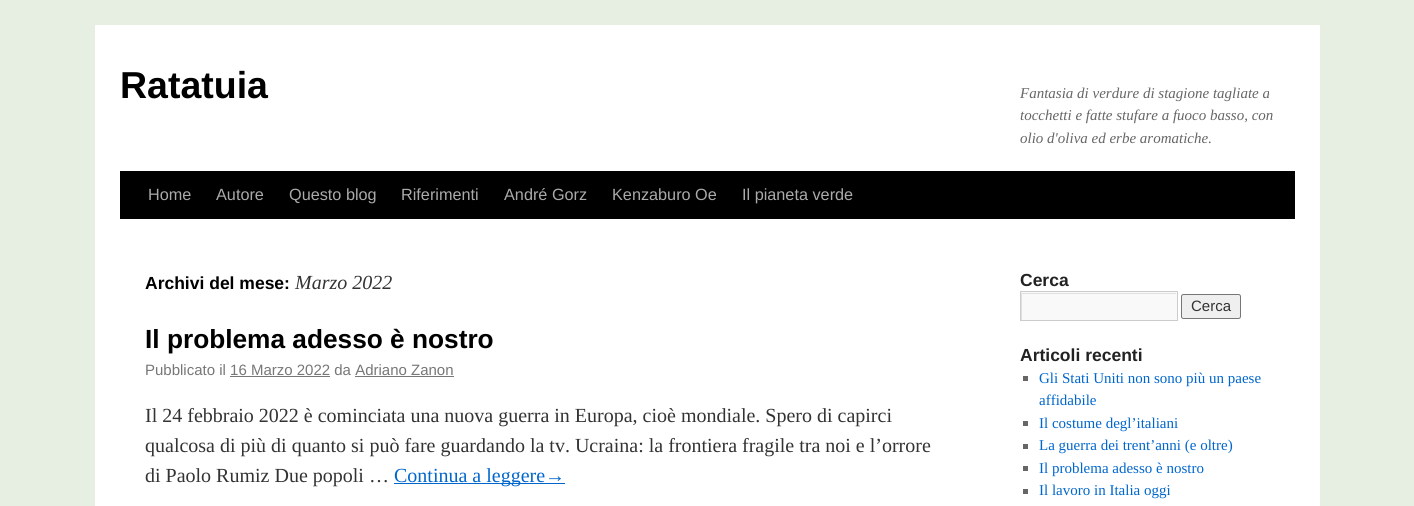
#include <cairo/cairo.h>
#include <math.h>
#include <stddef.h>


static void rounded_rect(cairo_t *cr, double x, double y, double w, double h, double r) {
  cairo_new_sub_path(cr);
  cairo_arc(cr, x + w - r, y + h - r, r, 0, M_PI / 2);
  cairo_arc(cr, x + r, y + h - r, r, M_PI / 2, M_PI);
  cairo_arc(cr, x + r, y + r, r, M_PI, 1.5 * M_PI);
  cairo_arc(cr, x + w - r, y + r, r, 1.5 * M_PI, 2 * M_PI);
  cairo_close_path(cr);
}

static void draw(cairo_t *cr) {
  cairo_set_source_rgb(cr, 230 / 255.0, 239 / 255.0, 225 / 255.0);
  cairo_paint(cr);
  cairo_set_source_rgb(cr, 1, 1, 1);
  cairo_rectangle(cr, 95, 25, 1225, 481);
  cairo_fill(cr);
  cairo_set_source_rgb(cr, 0, 0, 0);
  cairo_rectangle(cr, 120, 171, 1175, 48);
  cairo_fill(cr);
  cairo_set_source_rgb(cr, 119 / 255.0, 119 / 255.0, 119 / 255.0);
  cairo_rectangle(cr, 230, 376, 100, 1);
  cairo_fill(cr);
  cairo_rectangle(cr, 355, 376, 99, 1);
  cairo_fill(cr);
  cairo_set_source_rgb(cr, 0, 102 / 255.0, 204 / 255.0);
  cairo_rectangle(cr, 394, 483, 171, 1);
  cairo_fill(cr);
  cairo_set_source_rgb(cr, 249 / 255.0, 249 / 255.0, 249 / 255.0);
  cairo_rectangle(cr, 1021, 292, 156, 28);
  cairo_fill(cr);
  cairo_save(cr);
  cairo_rectangle(cr, 1021, 293, 155, 27);
  cairo_clip(cr);
  cairo_set_source_rgb(cr, 224 / 255.0, 224 / 255.0, 224 / 255.0);
  cairo_set_fill_rule(cr, CAIRO_FILL_RULE_EVEN_ODD);
  cairo_new_path(cr);
  cairo_move_to(cr, 898, 169);
  cairo_line_to(cr, 1300, 169);
  cairo_line_to(cr, 1300, 444);
  cairo_line_to(cr, 898, 444);
  cairo_close_path(cr);
  cairo_move_to(cr, 1022, 294);
  cairo_line_to(cr, 1178, 294);
  cairo_line_to(cr, 1178, 321);
  cairo_line_to(cr, 1022, 321);
  cairo_close_path(cr);
  cairo_fill(cr);
  cairo_restore(cr);
  cairo_rectangle(cr, 1020.5, 291.5, 157, 29);
  cairo_set_source_rgb(cr, 204 / 255.0, 204 / 255.0, 204 / 255.0);
  cairo_set_line_width(cr, 1);
  cairo_stroke(cr);
  cairo_set_source_rgb(cr, 239 / 255.0, 239 / 255.0, 239 / 255.0);
  rounded_rect(cr, 1181.5, 294.5, 59, 24, 2);
  cairo_fill_preserve(cr);
  cairo_set_source_rgb(cr, 118 / 255.0, 118 / 255.0, 118 / 255.0);
  cairo_stroke(cr);
  cairo_set_source_rgb(cr, 102 / 255.0, 102 / 255.0, 102 / 255.0);
  cairo_rectangle(cr, 1023, 376, 5, 5);
  cairo_fill(cr);
  cairo_rectangle(cr, 1023, 421, 5, 5);
  cairo_fill(cr);
  cairo_rectangle(cr, 1023, 444, 5, 5);
  cairo_fill(cr);
  cairo_rectangle(cr, 1023, 466, 5, 5);
  cairo_fill(cr);
  cairo_rectangle(cr, 1023, 489, 5, 5);
  cairo_fill(cr);
  cairo_select_font_face(cr, "Liberation Sans", CAIRO_FONT_SLANT_NORMAL, CAIRO_FONT_WEIGHT_BOLD);
  cairo_set_font_size(cr, 37.5);
  cairo_set_source_rgb(cr, 0, 0, 0);
  cairo_move_to(cr, 120, 98);
  cairo_show_text(cr, "Ratatuia");
  cairo_select_font_face(cr, "Liberation Serif", CAIRO_FONT_SLANT_ITALIC, CAIRO_FONT_WEIGHT_NORMAL);
  cairo_set_font_size(cr, 15);
  cairo_set_source_rgb(cr, 102 / 255.0, 102 / 255.0, 102 / 255.0);
  cairo_move_to(cr, 1020, 98);
  cairo_show_text(cr, "Fantasia di verdure di stagione tagliate a");
  cairo_move_to(cr, 1020, 120);
  cairo_show_text(cr, "tocchetti e fatte stufare a fuoco basso, con");
  cairo_move_to(cr, 1020, 143);
  cairo_show_text(cr, "olio d'oliva ed erbe aromatiche.");
  cairo_select_font_face(cr, "Liberation Sans", CAIRO_FONT_SLANT_NORMAL, CAIRO_FONT_WEIGHT_NORMAL);
  cairo_set_font_size(cr, 16.25);
  cairo_set_source_rgb(cr, 170 / 255.0, 170 / 255.0, 170 / 255.0);
  cairo_move_to(cr, 148, 200);
  cairo_show_text(cr, "Home");
  cairo_move_to(cr, 216, 200);
  cairo_show_text(cr, "Autore");
  cairo_move_to(cr, 289, 200);
  cairo_show_text(cr, "Questo blog");
  cairo_move_to(cr, 401, 200);
  cairo_show_text(cr, "Riferimenti");
  cairo_move_to(cr, 504, 200);
  cairo_show_text(cr, "André Gorz");
  cairo_move_to(cr, 612, 200);
  cairo_show_text(cr, "Kenzaburo Oe");
  cairo_move_to(cr, 742, 200);
  cairo_show_text(cr, "Il pianeta verde");
  cairo_select_font_face(cr, "Liberation Sans", CAIRO_FONT_SLANT_NORMAL, CAIRO_FONT_WEIGHT_BOLD);
  cairo_set_font_size(cr, 17.5);
  cairo_set_source_rgb(cr, 0, 0, 0);
  cairo_move_to(cr, 145, 289);
  cairo_show_text(cr, "Archivi del mese:");
  cairo_select_font_face(cr, "Liberation Serif", CAIRO_FONT_SLANT_ITALIC, CAIRO_FONT_WEIGHT_NORMAL);
  cairo_set_font_size(cr, 20);
  cairo_set_source_rgb(cr, 51 / 255.0, 51 / 255.0, 51 / 255.0);
  cairo_move_to(cr, 295, 289);
  cairo_show_text(cr, "Marzo 2022");
  cairo_select_font_face(cr, "Liberation Sans", CAIRO_FONT_SLANT_NORMAL, CAIRO_FONT_WEIGHT_BOLD);
  cairo_set_font_size(cr, 26.25);
  cairo_set_source_rgb(cr, 0, 0, 0);
  cairo_move_to(cr, 145, 348);
  cairo_show_text(cr, "Il problema adesso è nostro");
  cairo_select_font_face(cr, "Liberation Sans", CAIRO_FONT_SLANT_NORMAL, CAIRO_FONT_WEIGHT_NORMAL);
  cairo_set_font_size(cr, 15);
  cairo_set_source_rgb(cr, 119 / 255.0, 119 / 255.0, 119 / 255.0);
  cairo_move_to(cr, 145, 375);
  cairo_show_text(cr, "Pubblicato il 16 Marzo 2022 da Adriano Zanon");
  cairo_select_font_face(cr, "Liberation Serif", CAIRO_FONT_SLANT_NORMAL, CAIRO_FONT_WEIGHT_NORMAL);
  cairo_set_font_size(cr, 20);
  cairo_set_source_rgb(cr, 51 / 255.0, 51 / 255.0, 51 / 255.0);
  cairo_move_to(cr, 145, 422);
  cairo_show_text(cr, "Il 24 febbraio 2022 è cominciata una nuova guerra in Europa, cioè mondiale. Spero di capirci");
  cairo_move_to(cr, 145, 452);
  cairo_show_text(cr, "qualcosa di più di quanto si può fare guardando la tv. Ucraina: la frontiera fragile tra noi e l’orrore");
  cairo_move_to(cr, 145, 482);
  cairo_show_text(cr, "di Paolo Rumiz Due popoli …");
  cairo_set_source_rgb(cr, 0, 102 / 255.0, 204 / 255.0);
  cairo_move_to(cr, 394, 482);
  cairo_show_text(cr, "Continua a leggere→");
  cairo_select_font_face(cr, "Liberation Sans", CAIRO_FONT_SLANT_NORMAL, CAIRO_FONT_WEIGHT_BOLD);
  cairo_set_font_size(cr, 17.5);
  cairo_set_source_rgb(cr, 34 / 255.0, 34 / 255.0, 34 / 255.0);
  cairo_move_to(cr, 1020, 286);
  cairo_show_text(cr, "Cerca");
  cairo_select_font_face(cr, "Liberation Sans", CAIRO_FONT_SLANT_NORMAL, CAIRO_FONT_WEIGHT_NORMAL);
  cairo_set_font_size(cr, 15);
  cairo_set_source_rgb(cr, 51 / 255.0, 51 / 255.0, 51 / 255.0);
  cairo_move_to(cr, 1191, 311);
  cairo_show_text(cr, "Cerca");
  cairo_select_font_face(cr, "Liberation Sans", CAIRO_FONT_SLANT_NORMAL, CAIRO_FONT_WEIGHT_BOLD);
  cairo_set_font_size(cr, 17.5);
  cairo_set_source_rgb(cr, 34 / 255.0, 34 / 255.0, 34 / 255.0);
  cairo_move_to(cr, 1020, 361);
  cairo_show_text(cr, "Articoli recenti");
  cairo_select_font_face(cr, "Liberation Serif", CAIRO_FONT_SLANT_NORMAL, CAIRO_FONT_WEIGHT_NORMAL);
  cairo_set_font_size(cr, 15);
  cairo_set_source_rgb(cr, 0, 102 / 255.0, 204 / 255.0);
  cairo_move_to(cr, 1039, 383);
  cairo_show_text(cr, "Gli Stati Uniti non sono più un paese");
  cairo_move_to(cr, 1039, 405);
  cairo_show_text(cr, "affidabile");
  cairo_move_to(cr, 1039, 428);
  cairo_show_text(cr, "Il costume degl’italiani");
  cairo_move_to(cr, 1039, 450);
  cairo_show_text(cr, "La guerra dei trent’anni (e oltre)");
  cairo_move_to(cr, 1039, 473);
  cairo_show_text(cr, "Il problema adesso è nostro");
  cairo_move_to(cr, 1039, 495);
  cairo_show_text(cr, "Il lavoro in Italia oggi");
}

int main(void) {
  cairo_surface_t *surface = cairo_image_surface_create(CAIRO_FORMAT_RGB24, 1414, 506);
  cairo_t *cr = cairo_create(surface);
  cairo_font_options_t *options = cairo_font_options_create();
  cairo_font_options_set_hint_metrics(options, CAIRO_HINT_METRICS_OFF);
  cairo_font_options_set_hint_style(options, CAIRO_HINT_STYLE_NONE);
  cairo_set_font_options(cr, options);
  cairo_set_miter_limit(cr, 4);
  draw(cr);
  cairo_surface_write_to_png(surface, "out.png");
  cairo_font_options_destroy(options);
  cairo_destroy(cr);
  cairo_surface_destroy(surface);
  return 0;
}
